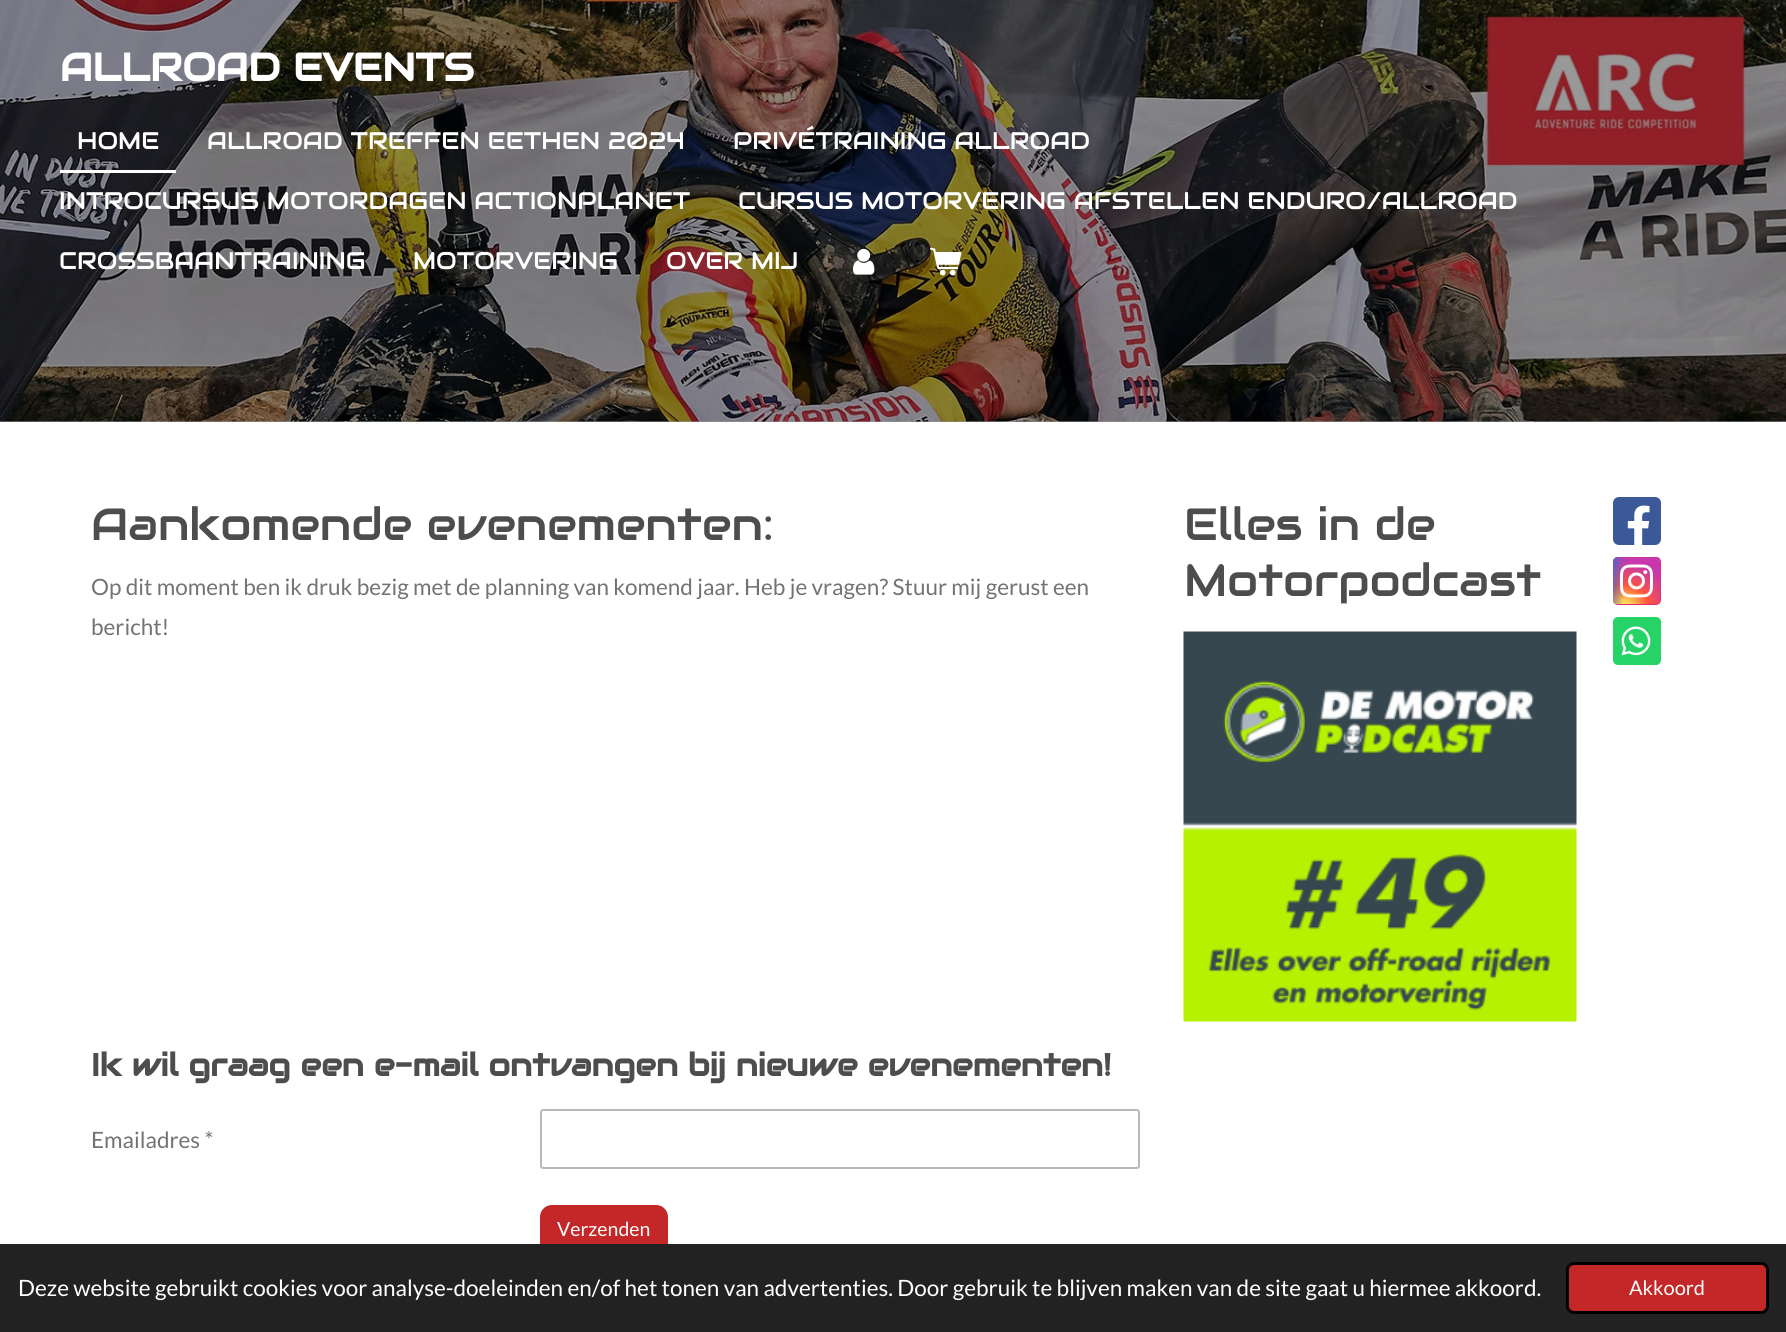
#include <cairo/cairo.h>
#include <math.h>
#include <stddef.h>


static void rounded_rect(cairo_t *cr, double x, double y, double w, double h, double r) {
  cairo_new_sub_path(cr);
  cairo_arc(cr, x + w - r, y + h - r, r, 0, M_PI / 2);
  cairo_arc(cr, x + r, y + h - r, r, M_PI / 2, M_PI);
  cairo_arc(cr, x + r, y + r, r, M_PI, 1.5 * M_PI);
  cairo_arc(cr, x + w - r, y + r, r, 1.5 * M_PI, 2 * M_PI);
  cairo_close_path(cr);
}

static void draw_image(cairo_t *cr, const char *path, double x, double y, double w, double h) {
  cairo_surface_t *image = cairo_image_surface_create_from_png(path);
  cairo_save(cr);
  cairo_set_source_surface(cr, image, x, y);
  cairo_rectangle(cr, x, y, w, h);
  cairo_fill(cr);
  cairo_restore(cr);
  cairo_surface_destroy(image);
}

static void draw(cairo_t *cr) {
  cairo_pattern_t *gradient;
  cairo_set_source_rgb(cr, 1, 1, 1);
  cairo_paint(cr);
  cairo_set_source_rgb(cr, 153 / 255.0, 153 / 255.0, 153 / 255.0);
  cairo_rectangle(cr, 0, 421, 1786, 1);
  cairo_fill(cr);
  draw_image(cr, "images/1.png", 0, 0, 1786, 422);
  cairo_set_source_rgb(cr, 1, 1, 1);
  cairo_rectangle(cr, 60, 170, 116, 3);
  cairo_fill(cr);
  draw_image(cr, "images/2.png", 853, 248, 22, 27);
  draw_image(cr, "images/3.png", 930, 247, 32, 29);
  draw_image(cr, "images/4.png", 1183, 631, 394, 391);
  cairo_set_source_rgb(cr, 59 / 255.0, 89 / 255.0, 152 / 255.0);
  rounded_rect(cr, 1613, 497, 48, 48, 6);
  cairo_fill(cr);
  draw_image(cr, "images/5.png", 1627, 505, 23, 40);
  cairo_set_source_rgb(cr, 225 / 255.0, 48 / 255.0, 108 / 255.0);
  rounded_rect(cr, 1613, 557, 48, 48, 5);
  cairo_fill(cr);
  cairo_save(cr);
  rounded_rect(cr, 1613, 557, 48, 48, 5);
  cairo_clip(cr);
  gradient = cairo_pattern_create_radial(0, 0, 0, 0, 0, 1);
  cairo_pattern_set_matrix(gradient, &(cairo_matrix_t){1.0 / 47, 0, 0, 1.0 / 44, -1.0 * 1625 / 47, -1.0 * 607 / 44});
  cairo_pattern_add_color_stop_rgba(gradient, 0, 1, 221 / 255.0, 85 / 255.0, 1);
  cairo_pattern_add_color_stop_rgba(gradient, 0.1, 1, 221 / 255.0, 85 / 255.0, 1);
  cairo_pattern_add_color_stop_rgba(gradient, 0.5, 1, 84 / 255.0, 62 / 255.0, 1);
  cairo_pattern_add_color_stop_rgba(gradient, 1, 200 / 255.0, 55 / 255.0, 171 / 255.0, 1);
  cairo_set_source(cr, gradient);
  cairo_pattern_destroy(gradient);
  cairo_new_path(cr);
  cairo_move_to(cr, 1618, 557);
  cairo_line_to(cr, 1660, 557);
  cairo_line_to(cr, 1660, 604);
  cairo_line_to(cr, 1613, 604);
  cairo_line_to(cr, 1613, 562);
  cairo_curve_to(cr, 1613, 559, 1615, 557, 1618, 557);
  cairo_close_path(cr);
  cairo_fill(cr);
  gradient = cairo_pattern_create_radial(0, 0, 0, 0, 0, 1);
  cairo_pattern_set_matrix(gradient, &(cairo_matrix_t){1.0 / 21, 0, 0, 1.0 / 86, -1.0 * 1605 / 21, -1.0 * 560 / 86});
  cairo_pattern_add_color_stop_rgba(gradient, 0, 55 / 255.0, 113 / 255.0, 200 / 255.0, 1);
  cairo_pattern_add_color_stop_rgba(gradient, 0.13, 55 / 255.0, 113 / 255.0, 200 / 255.0, 1);
  cairo_pattern_add_color_stop_rgba(gradient, 1, 55 / 255.0, 113 / 255.0, 200 / 255.0, 0);
  cairo_set_source(cr, gradient);
  cairo_pattern_destroy(gradient);
  cairo_new_path(cr);
  cairo_move_to(cr, 1618, 557);
  cairo_line_to(cr, 1660, 557);
  cairo_line_to(cr, 1660, 604);
  cairo_line_to(cr, 1613, 604);
  cairo_line_to(cr, 1613, 562);
  cairo_curve_to(cr, 1613, 559, 1615, 557, 1618, 557);
  cairo_close_path(cr);
  cairo_fill(cr);
  cairo_restore(cr);
  draw_image(cr, "images/6.png", 1620, 564, 33, 34);
  cairo_set_source_rgb(cr, 37 / 255.0, 211 / 255.0, 102 / 255.0);
  rounded_rect(cr, 1613, 617, 48, 48, 5);
  cairo_fill(cr);
  draw_image(cr, "images/7.png", 1621, 626, 30, 30);
  rounded_rect(cr, 541, 1110, 598, 58, 2);
  cairo_set_source_rgb(cr, 185 / 255.0, 185 / 255.0, 185 / 255.0);
  cairo_stroke(cr);
  cairo_set_source_rgb(cr, 196 / 255.0, 39 / 255.0, 39 / 255.0);
  rounded_rect(cr, 540, 1205, 128, 51, 12);
  cairo_fill(cr);
  cairo_set_source_rgb(cr, 34 / 255.0, 34 / 255.0, 34 / 255.0);
  cairo_rectangle(cr, 0, 1244, 1786, 88);
  cairo_fill(cr);
  cairo_set_source_rgb(cr, 196 / 255.0, 39 / 255.0, 39 / 255.0);
  rounded_rect(cr, 1567.5, 1263.5, 200, 49, 6.5);
  cairo_fill_preserve(cr);
  cairo_set_source_rgb(cr, 0, 0, 0);
  cairo_set_line_width(cr, 3);
  cairo_stroke(cr);
  cairo_select_font_face(cr, "Audiowide", CAIRO_FONT_SLANT_NORMAL, CAIRO_FONT_WEIGHT_BOLD);
  cairo_set_font_size(cr, 39);
  cairo_set_source_rgb(cr, 1, 1, 1);
  cairo_move_to(cr, 60, 81);
  cairo_show_text(cr, "ALLROAD EVENTS");
  cairo_select_font_face(cr, "Audiowide", CAIRO_FONT_SLANT_NORMAL, CAIRO_FONT_WEIGHT_NORMAL);
  cairo_set_font_size(cr, 24);
  cairo_move_to(cr, 77, 149);
  cairo_show_text(cr, "HOME");
  cairo_move_to(cr, 207, 149);
  cairo_show_text(cr, "ALLROAD TREFFEN EETHEN 2024");
  cairo_move_to(cr, 733, 149);
  cairo_show_text(cr, "PRIVÉTRAINING ALLROAD");
  cairo_move_to(cr, 59, 209);
  cairo_show_text(cr, "INTROCURSUS MOTORDAGEN ACTIONPLANET");
  cairo_move_to(cr, 738, 209);
  cairo_show_text(cr, "CURSUS MOTORVERING AFSTELLEN ENDURO/ALLROAD");
  cairo_move_to(cr, 59, 269);
  cairo_show_text(cr, "CROSSBAANTRAINING");
  cairo_move_to(cr, 413, 269);
  cairo_show_text(cr, "MOTORVERING");
  cairo_move_to(cr, 666, 269);
  cairo_show_text(cr, "OVER MIJ");
  cairo_set_font_size(cr, 45);
  cairo_set_source_rgb(cr, 77 / 255.0, 77 / 255.0, 77 / 255.0);
  cairo_move_to(cr, 91, 540);
  cairo_show_text(cr, "Aankomende evenementen:");
  cairo_select_font_face(cr, "Lato", CAIRO_FONT_SLANT_NORMAL, CAIRO_FONT_WEIGHT_NORMAL);
  cairo_set_font_size(cr, 22.5);
  cairo_set_source_rgb(cr, 115 / 255.0, 115 / 255.0, 115 / 255.0);
  cairo_move_to(cr, 91, 595);
  cairo_show_text(cr, "Op dit moment ben ik druk bezig met de planning van komend jaar. Heb je vragen? Stuur mij gerust een");
  cairo_move_to(cr, 91, 635);
  cairo_show_text(cr, "bericht!");
  cairo_select_font_face(cr, "Audiowide", CAIRO_FONT_SLANT_NORMAL, CAIRO_FONT_WEIGHT_NORMAL);
  cairo_set_font_size(cr, 45);
  cairo_set_source_rgb(cr, 77 / 255.0, 77 / 255.0, 77 / 255.0);
  cairo_move_to(cr, 1184, 540);
  cairo_show_text(cr, "Elles in de");
  cairo_move_to(cr, 1184, 596);
  cairo_show_text(cr, "Motorpodcast");
  cairo_select_font_face(cr, "Audiowide", CAIRO_FONT_SLANT_NORMAL, CAIRO_FONT_WEIGHT_BOLD);
  cairo_set_font_size(cr, 31.5);
  cairo_move_to(cr, 91, 1076);
  cairo_show_text(cr, "Ik wil graag een e-mail ontvangen bij nieuwe evenementen!");
  cairo_select_font_face(cr, "Lato", CAIRO_FONT_SLANT_NORMAL, CAIRO_FONT_WEIGHT_NORMAL);
  cairo_set_font_size(cr, 22.5);
  cairo_set_source_rgb(cr, 115 / 255.0, 115 / 255.0, 115 / 255.0);
  cairo_move_to(cr, 91, 1148);
  cairo_show_text(cr, "Emailadres *");
  cairo_set_font_size(cr, 19.5);
  cairo_set_source_rgb(cr, 1, 1, 1);
  cairo_move_to(cr, 557, 1236);
  cairo_show_text(cr, "Verzenden");
  cairo_set_font_size(cr, 22.5);
  cairo_move_to(cr, 18, 1296);
  cairo_show_text(cr, "Deze website gebruikt cookies voor analyse-doeleinden en/of het tonen van advertenties. Door gebruik te blijven maken van de site gaat u hiermee akkoord.");
  cairo_set_font_size(cr, 20);
  cairo_move_to(cr, 1629, 1295);
  cairo_show_text(cr, "Akkoord");
}

int main(void) {
  cairo_surface_t *surface = cairo_image_surface_create(CAIRO_FORMAT_RGB24, 1786, 1332);
  cairo_t *cr = cairo_create(surface);
  cairo_font_options_t *options = cairo_font_options_create();
  cairo_font_options_set_hint_metrics(options, CAIRO_HINT_METRICS_OFF);
  cairo_font_options_set_hint_style(options, CAIRO_HINT_STYLE_NONE);
  cairo_set_font_options(cr, options);
  cairo_set_miter_limit(cr, 4);
  draw(cr);
  cairo_surface_write_to_png(surface, "out.png");
  cairo_font_options_destroy(options);
  cairo_destroy(cr);
  cairo_surface_destroy(surface);
  return 0;
}
